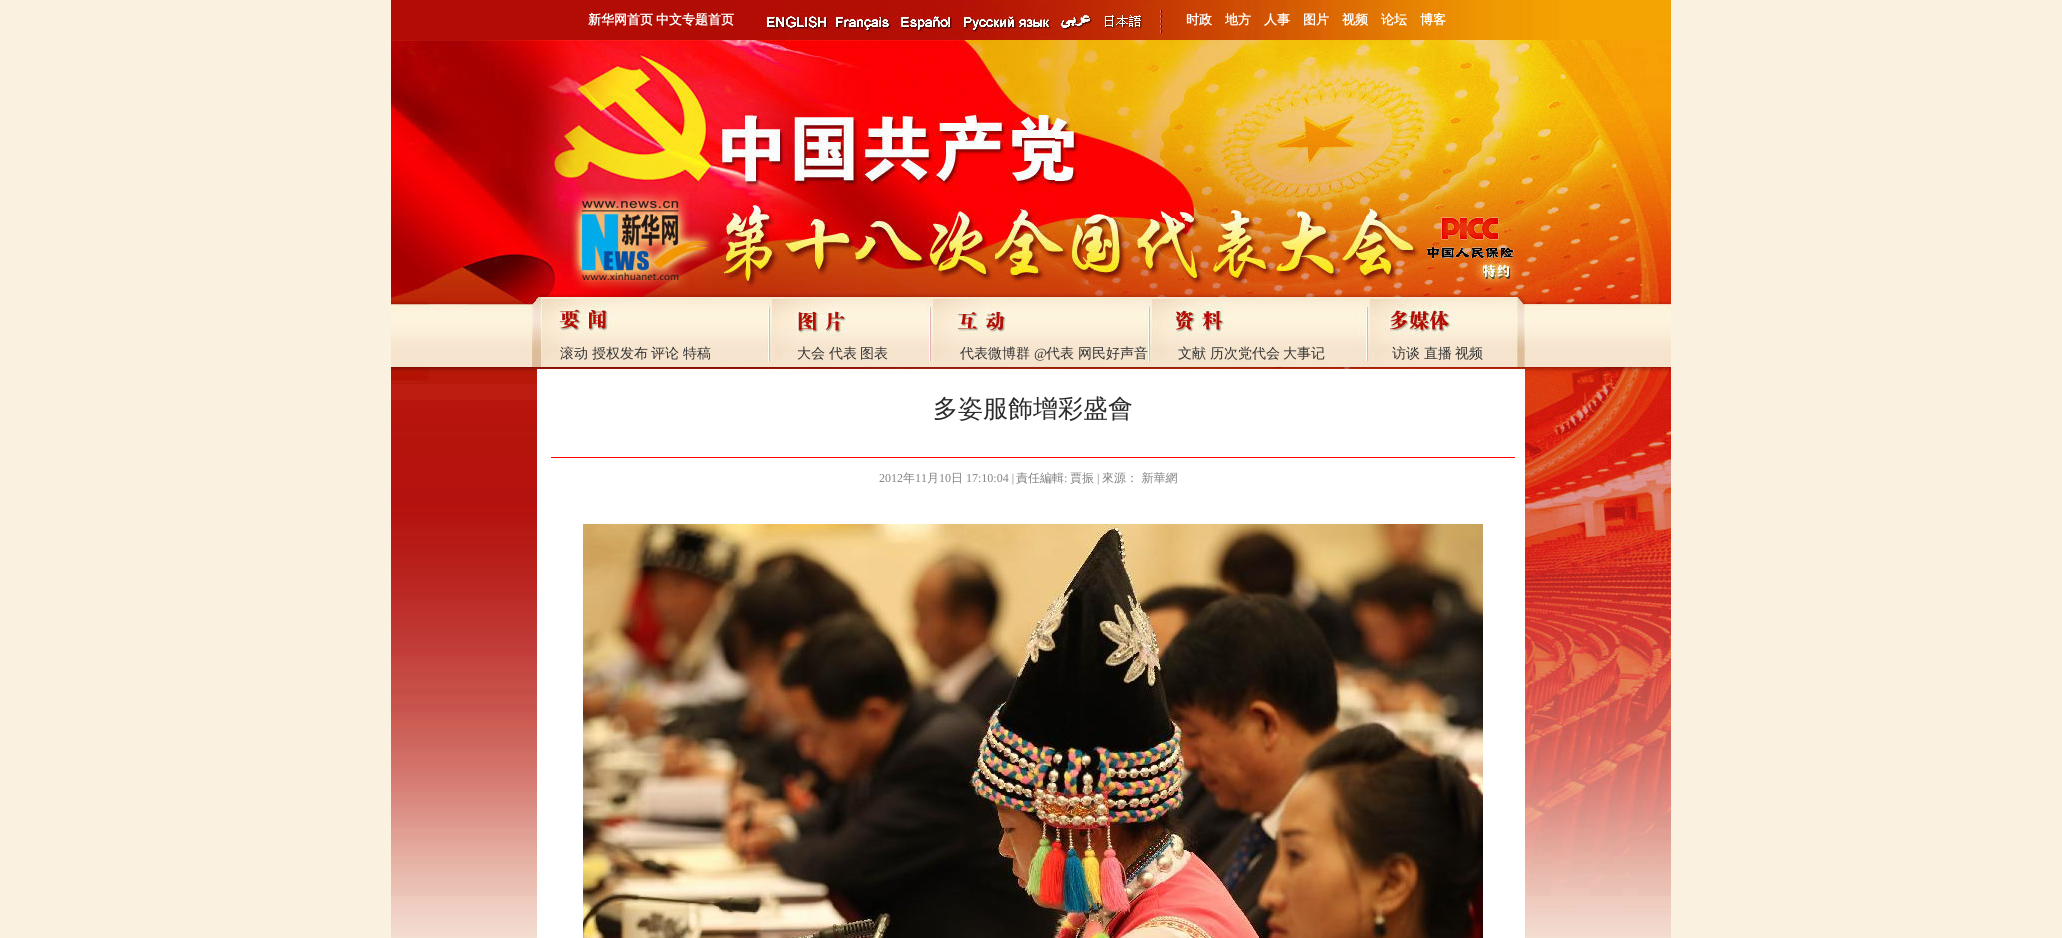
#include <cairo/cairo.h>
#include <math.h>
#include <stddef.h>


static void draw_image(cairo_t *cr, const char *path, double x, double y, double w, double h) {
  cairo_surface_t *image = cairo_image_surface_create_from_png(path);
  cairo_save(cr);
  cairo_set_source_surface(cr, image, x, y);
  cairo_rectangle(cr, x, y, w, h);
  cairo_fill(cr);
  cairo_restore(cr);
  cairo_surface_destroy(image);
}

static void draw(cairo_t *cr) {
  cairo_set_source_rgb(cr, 250 / 255.0, 241 / 255.0, 225 / 255.0);
  cairo_paint(cr);
  draw_image(cr, "images/1.png", 391, 0, 1280, 938);
  draw_image(cr, "images/2.png", 766, 4, 400, 32);
  cairo_set_source_rgb(cr, 1, 1, 1);
  cairo_rectangle(cr, 537, 369, 988, 569);
  cairo_fill(cr);
  cairo_set_source_rgb(cr, 1, 0, 0);
  cairo_rectangle(cr, 551, 457, 964, 1);
  cairo_fill(cr);
  draw_image(cr, "images/3.png", 583, 524, 900, 414);
  cairo_select_font_face(cr, "WenQuanYi Zen Hei", CAIRO_FONT_SLANT_NORMAL, CAIRO_FONT_WEIGHT_BOLD);
  cairo_set_font_size(cr, 13);
  cairo_set_source_rgb(cr, 1, 1, 1);
  cairo_move_to(cr, 588, 24);
  cairo_show_text(cr, "新华网首页");
  cairo_move_to(cr, 656, 24);
  cairo_show_text(cr, "中文专题首页");
  cairo_move_to(cr, 1186, 24);
  cairo_show_text(cr, "时政");
  cairo_move_to(cr, 1225, 24);
  cairo_show_text(cr, "地方");
  cairo_move_to(cr, 1264, 24);
  cairo_show_text(cr, "人事");
  cairo_move_to(cr, 1303, 24);
  cairo_show_text(cr, "图片");
  cairo_move_to(cr, 1342, 24);
  cairo_show_text(cr, "视频");
  cairo_move_to(cr, 1381, 24);
  cairo_show_text(cr, "论坛");
  cairo_move_to(cr, 1420, 24);
  cairo_show_text(cr, "博客");
  cairo_select_font_face(cr, "WenQuanYi Zen Hei Medium", CAIRO_FONT_SLANT_NORMAL, CAIRO_FONT_WEIGHT_NORMAL);
  cairo_set_font_size(cr, 14);
  cairo_set_source_rgb(cr, 51 / 255.0, 51 / 255.0, 51 / 255.0);
  cairo_move_to(cr, 560, 358);
  cairo_show_text(cr, "滚动");
  cairo_move_to(cr, 592, 358);
  cairo_show_text(cr, "授权发布");
  cairo_move_to(cr, 651, 358);
  cairo_show_text(cr, "评论");
  cairo_move_to(cr, 683, 358);
  cairo_show_text(cr, "特稿");
  cairo_move_to(cr, 797, 358);
  cairo_show_text(cr, "大会");
  cairo_move_to(cr, 829, 358);
  cairo_show_text(cr, "代表");
  cairo_move_to(cr, 860, 358);
  cairo_show_text(cr, "图表");
  cairo_move_to(cr, 960, 358);
  cairo_show_text(cr, "代表微博群");
  cairo_select_font_face(cr, "Liberation Serif", CAIRO_FONT_SLANT_NORMAL, CAIRO_FONT_WEIGHT_NORMAL);
  cairo_move_to(cr, 1034, 358);
  cairo_show_text(cr, "@");
  cairo_select_font_face(cr, "WenQuanYi Zen Hei Medium", CAIRO_FONT_SLANT_NORMAL, CAIRO_FONT_WEIGHT_NORMAL);
  cairo_move_to(cr, 1046, 358);
  cairo_show_text(cr, "代表");
  cairo_move_to(cr, 1078, 358);
  cairo_show_text(cr, "网民好声音");
  cairo_move_to(cr, 1178, 358);
  cairo_show_text(cr, "文献");
  cairo_move_to(cr, 1210, 358);
  cairo_show_text(cr, "历次党代会");
  cairo_move_to(cr, 1283, 358);
  cairo_show_text(cr, "大事记");
  cairo_move_to(cr, 1392, 358);
  cairo_show_text(cr, "访谈");
  cairo_move_to(cr, 1424, 358);
  cairo_show_text(cr, "直播");
  cairo_move_to(cr, 1455, 358);
  cairo_show_text(cr, "视频");
  cairo_set_font_size(cr, 25);
  cairo_set_source_rgb(cr, 42 / 255.0, 44 / 255.0, 41 / 255.0);
  cairo_move_to(cr, 933, 417);
  cairo_show_text(cr, "多姿服飾增彩盛會");
  cairo_select_font_face(cr, "Liberation Serif", CAIRO_FONT_SLANT_NORMAL, CAIRO_FONT_WEIGHT_NORMAL);
  cairo_set_font_size(cr, 12);
  cairo_set_source_rgb(cr, 129 / 255.0, 129 / 255.0, 129 / 255.0);
  cairo_move_to(cr, 879, 482);
  cairo_show_text(cr, "2012");
  cairo_select_font_face(cr, "WenQuanYi Zen Hei Medium", CAIRO_FONT_SLANT_NORMAL, CAIRO_FONT_WEIGHT_NORMAL);
  cairo_move_to(cr, 903, 482);
  cairo_show_text(cr, "年");
  cairo_select_font_face(cr, "Liberation Serif", CAIRO_FONT_SLANT_NORMAL, CAIRO_FONT_WEIGHT_NORMAL);
  cairo_move_to(cr, 915, 482);
  cairo_show_text(cr, "11");
  cairo_select_font_face(cr, "WenQuanYi Zen Hei Medium", CAIRO_FONT_SLANT_NORMAL, CAIRO_FONT_WEIGHT_NORMAL);
  cairo_move_to(cr, 927, 482);
  cairo_show_text(cr, "月");
  cairo_select_font_face(cr, "Liberation Serif", CAIRO_FONT_SLANT_NORMAL, CAIRO_FONT_WEIGHT_NORMAL);
  cairo_move_to(cr, 939, 482);
  cairo_show_text(cr, "10");
  cairo_select_font_face(cr, "WenQuanYi Zen Hei Medium", CAIRO_FONT_SLANT_NORMAL, CAIRO_FONT_WEIGHT_NORMAL);
  cairo_move_to(cr, 951, 482);
  cairo_show_text(cr, "日");
  cairo_select_font_face(cr, "Liberation Serif", CAIRO_FONT_SLANT_NORMAL, CAIRO_FONT_WEIGHT_NORMAL);
  cairo_move_to(cr, 966, 482);
  cairo_show_text(cr, "17:10:04 |");
  cairo_select_font_face(cr, "WenQuanYi Zen Hei Medium", CAIRO_FONT_SLANT_NORMAL, CAIRO_FONT_WEIGHT_NORMAL);
  cairo_move_to(cr, 1016, 482);
  cairo_show_text(cr, "責任編輯");
  cairo_select_font_face(cr, "Liberation Serif", CAIRO_FONT_SLANT_NORMAL, CAIRO_FONT_WEIGHT_NORMAL);
  cairo_move_to(cr, 1064, 482);
  cairo_show_text(cr, ":");
  cairo_select_font_face(cr, "WenQuanYi Zen Hei Medium", CAIRO_FONT_SLANT_NORMAL, CAIRO_FONT_WEIGHT_NORMAL);
  cairo_move_to(cr, 1070, 482);
  cairo_show_text(cr, "賈振");
  cairo_select_font_face(cr, "Liberation Serif", CAIRO_FONT_SLANT_NORMAL, CAIRO_FONT_WEIGHT_NORMAL);
  cairo_move_to(cr, 1097, 482);
  cairo_show_text(cr, "|");
  cairo_select_font_face(cr, "WenQuanYi Zen Hei Medium", CAIRO_FONT_SLANT_NORMAL, CAIRO_FONT_WEIGHT_NORMAL);
  cairo_move_to(cr, 1102, 482);
  cairo_show_text(cr, "來源： 新華網");
}

int main(void) {
  cairo_surface_t *surface = cairo_image_surface_create(CAIRO_FORMAT_RGB24, 2062, 938);
  cairo_t *cr = cairo_create(surface);
  cairo_font_options_t *options = cairo_font_options_create();
  cairo_font_options_set_hint_metrics(options, CAIRO_HINT_METRICS_OFF);
  cairo_font_options_set_hint_style(options, CAIRO_HINT_STYLE_NONE);
  cairo_set_font_options(cr, options);
  cairo_set_miter_limit(cr, 4);
  draw(cr);
  cairo_surface_write_to_png(surface, "out.png");
  cairo_font_options_destroy(options);
  cairo_destroy(cr);
  cairo_surface_destroy(surface);
  return 0;
}
